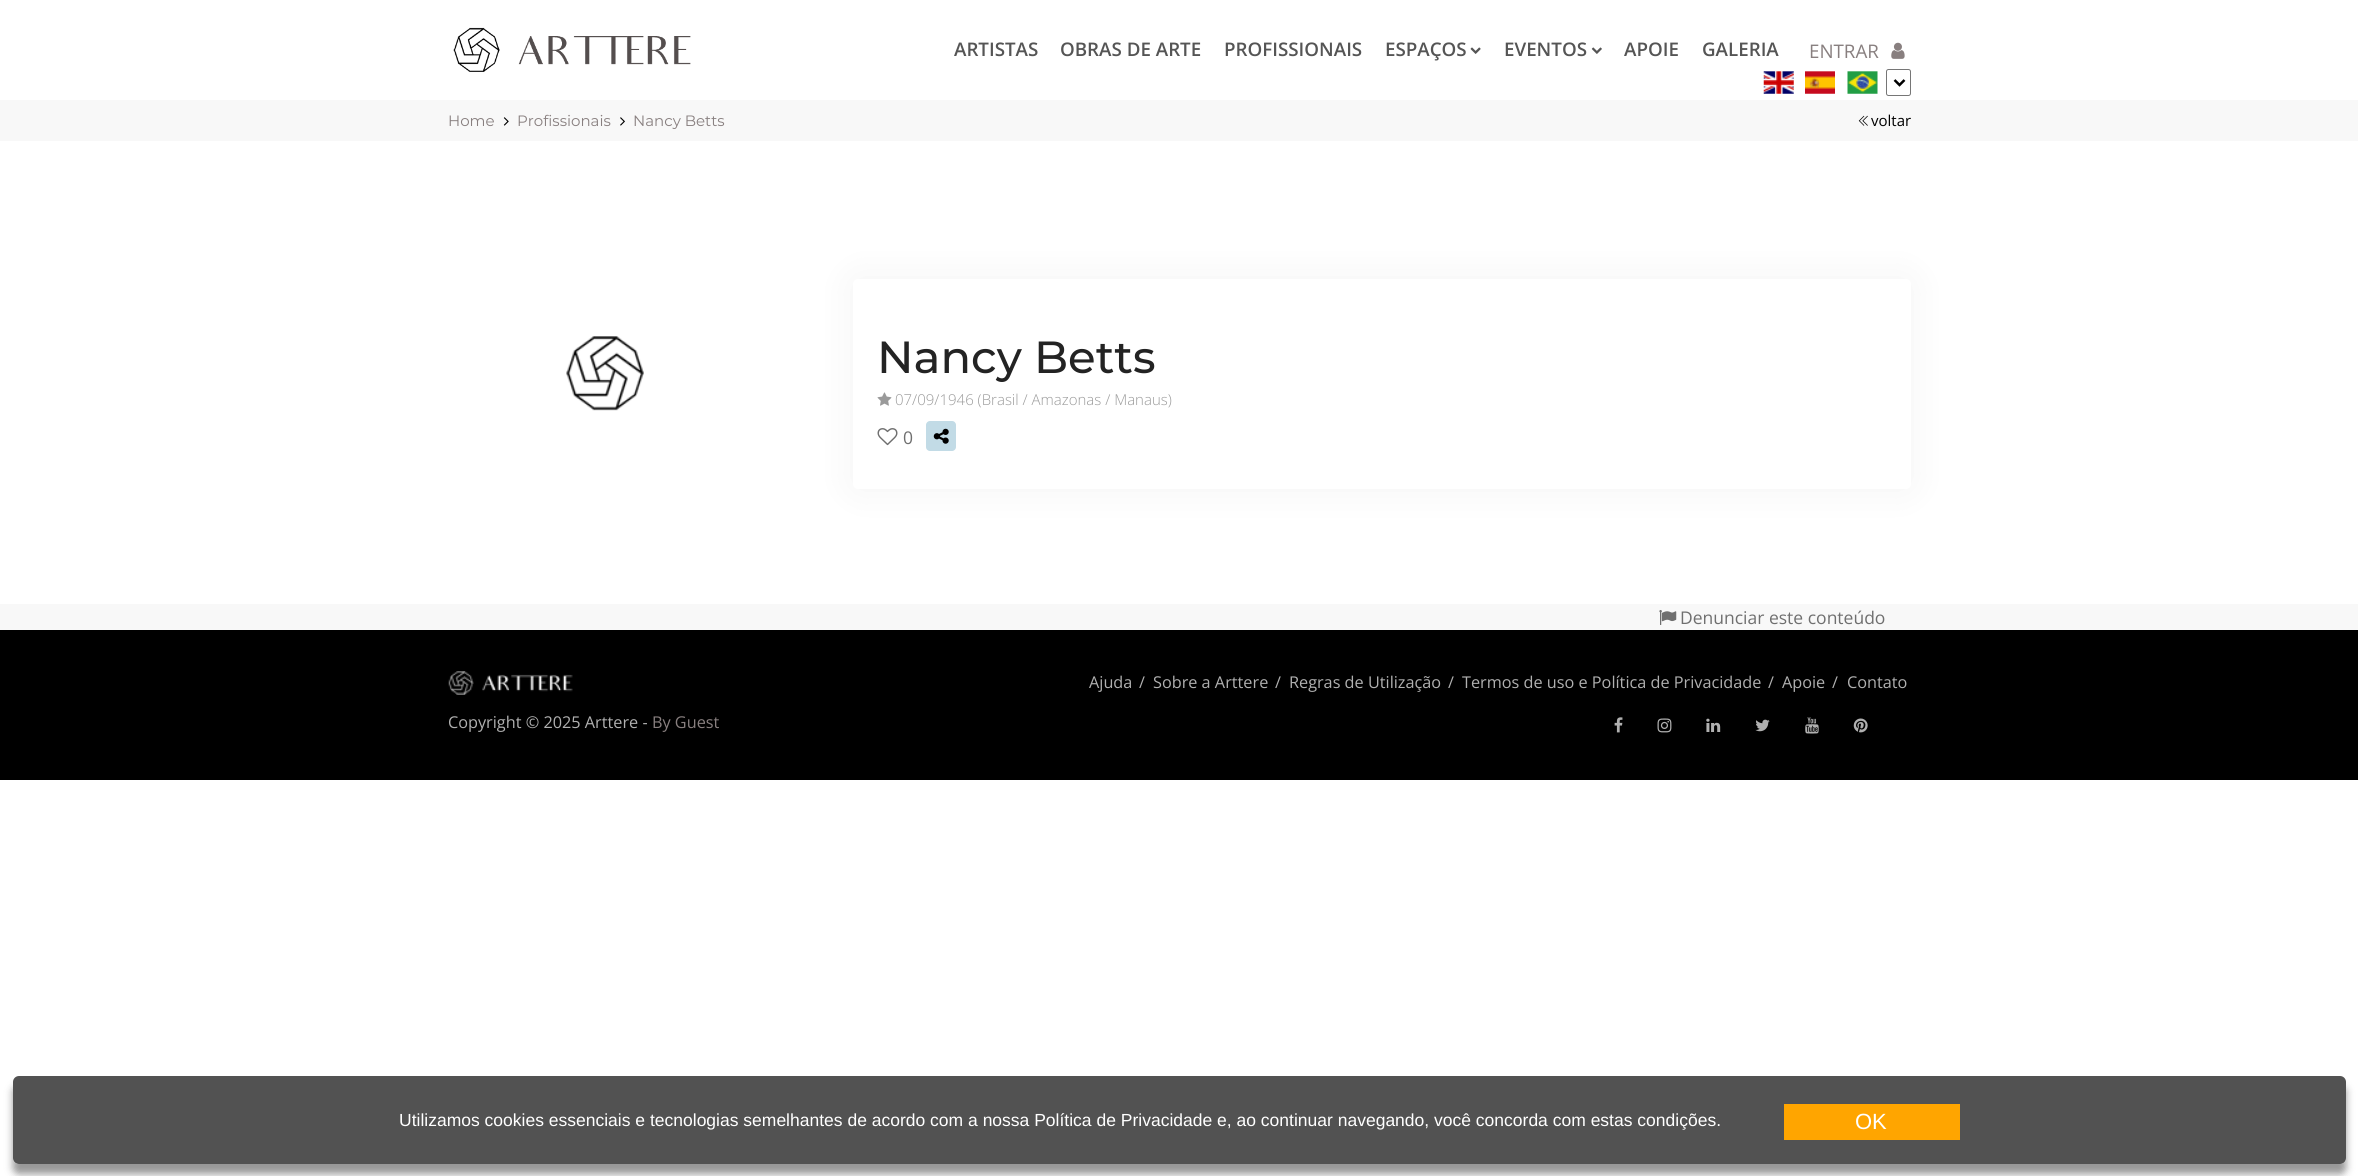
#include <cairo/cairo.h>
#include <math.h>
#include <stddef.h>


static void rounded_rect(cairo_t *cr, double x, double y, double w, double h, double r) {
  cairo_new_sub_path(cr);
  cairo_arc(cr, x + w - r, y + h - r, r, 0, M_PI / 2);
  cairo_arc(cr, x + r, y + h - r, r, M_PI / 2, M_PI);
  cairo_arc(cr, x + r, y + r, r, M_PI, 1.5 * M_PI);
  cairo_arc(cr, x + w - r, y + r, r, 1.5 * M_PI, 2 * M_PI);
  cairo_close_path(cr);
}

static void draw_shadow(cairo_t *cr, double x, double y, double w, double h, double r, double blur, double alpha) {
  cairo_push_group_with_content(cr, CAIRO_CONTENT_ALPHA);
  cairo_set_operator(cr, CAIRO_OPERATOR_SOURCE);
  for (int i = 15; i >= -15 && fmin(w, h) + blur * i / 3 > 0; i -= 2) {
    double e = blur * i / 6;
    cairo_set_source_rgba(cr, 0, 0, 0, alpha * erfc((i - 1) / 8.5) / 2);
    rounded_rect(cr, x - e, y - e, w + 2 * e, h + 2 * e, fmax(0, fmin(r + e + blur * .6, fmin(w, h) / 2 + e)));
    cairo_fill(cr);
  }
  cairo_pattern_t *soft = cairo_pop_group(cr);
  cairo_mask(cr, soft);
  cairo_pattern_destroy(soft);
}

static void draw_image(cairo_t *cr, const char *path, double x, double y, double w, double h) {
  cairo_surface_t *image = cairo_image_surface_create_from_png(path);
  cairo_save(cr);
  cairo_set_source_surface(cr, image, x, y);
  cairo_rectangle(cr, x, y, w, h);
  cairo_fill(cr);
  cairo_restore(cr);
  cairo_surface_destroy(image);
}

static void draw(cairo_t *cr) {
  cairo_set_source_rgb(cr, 1, 1, 1);
  cairo_paint(cr);
  cairo_set_source_rgb(cr, 248 / 255.0, 248 / 255.0, 248 / 255.0);
  cairo_rectangle(cr, 0, 100, 2358, 530);
  cairo_fill(cr);
  draw_image(cr, "images/1.png", 453, 27, 238, 45);
  draw_image(cr, "images/2.png", 1470, 47, 11, 7);
  draw_image(cr, "images/3.png", 1591, 47, 11, 7);
  draw_image(cr, "images/4.png", 1891, 42, 14, 17);
  draw_image(cr, "images/5.png", 1763, 71, 31, 23);
  draw_image(cr, "images/6.png", 1805, 71, 30, 23);
  draw_image(cr, "images/7.png", 1847, 71, 31, 23);
  rounded_rect(cr, 1886.5, 69.5, 24, 26, 2);
  cairo_set_source_rgb(cr, 118 / 255.0, 118 / 255.0, 118 / 255.0);
  cairo_set_line_width(cr, 1);
  cairo_stroke(cr);
  cairo_new_path(cr);
  cairo_move_to(cr, 1894.5, 80);
  cairo_line_to(cr, 1899.5, 85);
  cairo_line_to(cr, 1904.5, 80);
  cairo_set_source_rgb(cr, 0, 0, 0);
  cairo_set_line_width(cr, 2.5);
  cairo_stroke(cr);
  draw_image(cr, "images/8.png", 503, 117, 6, 9);
  draw_image(cr, "images/9.png", 620, 117, 5, 9);
  draw_image(cr, "images/10.png", 1858, 115, 10, 11);
  cairo_set_source_rgb(cr, 1, 1, 1);
  cairo_rectangle(cr, 0, 141, 2358, 463);
  cairo_fill(cr);
  draw_image(cr, "images/11.png", 566, 336, 78, 75);
  cairo_set_source_rgb(cr, 0, 0, 0);
  draw_shadow(cr, 853, 279, 1058, 210, 5, 19, 0.05);
  cairo_set_source_rgb(cr, 1, 1, 1);
  rounded_rect(cr, 853, 279, 1058, 210, 5);
  cairo_fill(cr);
  draw_image(cr, "images/12.png", 877, 392, 15, 14);
  draw_image(cr, "images/13.png", 877, 428, 21, 18);
  cairo_set_source_rgb(cr, 194 / 255.0, 219 / 255.0, 230 / 255.0);
  rounded_rect(cr, 926, 421, 30, 30, 4);
  cairo_fill(cr);
  draw_image(cr, "images/14.png", 933, 428, 16, 16);
  draw_image(cr, "images/15.png", 1659, 610, 18, 15);
  cairo_set_source_rgb(cr, 0, 0, 0);
  cairo_rectangle(cr, 0, 630, 2358, 150);
  cairo_fill(cr);
  draw_image(cr, "images/16.png", 1614, 717, 9, 16);
  draw_image(cr, "images/17.png", 1657, 718, 15, 15);
  draw_image(cr, "images/18.png", 1706, 718, 15, 14);
  draw_image(cr, "images/19.png", 1755, 719, 15, 13);
  draw_image(cr, "images/20.png", 1805, 717, 14, 17);
  draw_image(cr, "images/21.png", 1853, 718, 15, 15);
  draw_image(cr, "images/22.png", 448, 671, 125, 24);
  cairo_save(cr);
  cairo_set_fill_rule(cr, CAIRO_FILL_RULE_EVEN_ODD);
  cairo_new_path(cr);
  cairo_move_to(cr, 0, 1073);
  cairo_line_to(cr, 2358, 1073);
  cairo_line_to(cr, 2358, 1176);
  cairo_line_to(cr, 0, 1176);
  cairo_close_path(cr);
  cairo_move_to(cr, 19, 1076);
  cairo_line_to(cr, 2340, 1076);
  cairo_curve_to(cr, 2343.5, 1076, 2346, 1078.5, 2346, 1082);
  cairo_line_to(cr, 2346, 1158);
  cairo_curve_to(cr, 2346, 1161.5, 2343.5, 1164, 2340, 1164);
  cairo_line_to(cr, 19, 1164);
  cairo_curve_to(cr, 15.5, 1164, 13, 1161.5, 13, 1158);
  cairo_line_to(cr, 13, 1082);
  cairo_curve_to(cr, 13, 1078.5, 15.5, 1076, 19, 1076);
  cairo_close_path(cr);
  cairo_clip(cr);
  cairo_set_source_rgb(cr, 0, 0, 0);
  draw_shadow(cr, 13, 1086, 2333, 88, 6, 4, 0.41);
  cairo_restore(cr);
  cairo_set_source_rgba(cr, 64 / 255.0, 64 / 255.0, 64 / 255.0, 0.9);
  rounded_rect(cr, 13, 1076, 2333, 88, 6);
  cairo_fill(cr);
  cairo_set_source_rgb(cr, 1, 165 / 255.0, 0);
  cairo_rectangle(cr, 1784, 1104, 176, 36);
  cairo_fill(cr);
  cairo_select_font_face(cr, "Open Sans SemiBold", CAIRO_FONT_SLANT_NORMAL, CAIRO_FONT_WEIGHT_NORMAL);
  cairo_set_font_size(cr, 18.75);
  cairo_set_source_rgb(cr, 85 / 255.0, 85 / 255.0, 85 / 255.0);
  cairo_move_to(cr, 954, 56);
  cairo_show_text(cr, "ARTISTAS");
  cairo_move_to(cr, 1060, 56);
  cairo_show_text(cr, "OBRAS DE ARTE");
  cairo_move_to(cr, 1224, 56);
  cairo_show_text(cr, "PROFISSIONAIS");
  cairo_move_to(cr, 1385, 56);
  cairo_show_text(cr, "ESPAÇOS");
  cairo_move_to(cr, 1504, 56);
  cairo_show_text(cr, "EVENTOS");
  cairo_move_to(cr, 1624, 56);
  cairo_show_text(cr, "APOIE");
  cairo_move_to(cr, 1702, 56);
  cairo_show_text(cr, "GALERIA");
  cairo_select_font_face(cr, "Open Sans", CAIRO_FONT_SLANT_NORMAL, CAIRO_FONT_WEIGHT_NORMAL);
  cairo_set_source_rgb(cr, 136 / 255.0, 127 / 255.0, 127 / 255.0);
  cairo_move_to(cr, 1809, 58);
  cairo_show_text(cr, "ENTRAR");
  cairo_select_font_face(cr, "Montserrat", CAIRO_FONT_SLANT_NORMAL, CAIRO_FONT_WEIGHT_NORMAL);
  cairo_set_font_size(cr, 15);
  cairo_move_to(cr, 448, 126);
  cairo_show_text(cr, "Home");
  cairo_move_to(cr, 517, 126);
  cairo_show_text(cr, "Profissionais");
  cairo_move_to(cr, 633, 126);
  cairo_show_text(cr, "Nancy Betts");
  cairo_select_font_face(cr, "Open Sans", CAIRO_FONT_SLANT_NORMAL, CAIRO_FONT_WEIGHT_NORMAL);
  cairo_set_source_rgb(cr, 0, 0, 0);
  cairo_move_to(cr, 1871, 126);
  cairo_show_text(cr, "voltar");
  cairo_select_font_face(cr, "Montserrat Medium", CAIRO_FONT_SLANT_NORMAL, CAIRO_FONT_WEIGHT_NORMAL);
  cairo_set_font_size(cr, 45);
  cairo_set_source_rgb(cr, 35 / 255.0, 35 / 255.0, 35 / 255.0);
  cairo_move_to(cr, 877, 373);
  cairo_show_text(cr, "Nancy Betts");
  cairo_select_font_face(cr, "Open Sans Light", CAIRO_FONT_SLANT_NORMAL, CAIRO_FONT_WEIGHT_NORMAL);
  cairo_set_font_size(cr, 15);
  cairo_set_source_rgb(cr, 154 / 255.0, 154 / 255.0, 154 / 255.0);
  cairo_move_to(cr, 895, 405);
  cairo_show_text(cr, "07/09/1946 (Brasil / Amazonas / Manaus)");
  cairo_select_font_face(cr, "Open Sans", CAIRO_FONT_SLANT_NORMAL, CAIRO_FONT_WEIGHT_NORMAL);
  cairo_set_font_size(cr, 17.5);
  cairo_set_source_rgb(cr, 111 / 255.0, 111 / 255.0, 111 / 255.0);
  cairo_move_to(cr, 903, 444);
  cairo_show_text(cr, "0");
  cairo_move_to(cr, 1680, 624);
  cairo_show_text(cr, "Denunciar este conteúdo");
  cairo_set_font_size(cr, 16.25);
  cairo_set_source_rgb(cr, 176 / 255.0, 176 / 255.0, 176 / 255.0);
  cairo_move_to(cr, 1089, 688);
  cairo_show_text(cr, "Ajuda");
  cairo_move_to(cr, 1139, 688);
  cairo_show_text(cr, "/");
  cairo_move_to(cr, 1153, 688);
  cairo_show_text(cr, "Sobre a Arttere");
  cairo_move_to(cr, 1275, 688);
  cairo_show_text(cr, "/");
  cairo_move_to(cr, 1289, 688);
  cairo_show_text(cr, "Regras de Utilização");
  cairo_move_to(cr, 1448, 688);
  cairo_show_text(cr, "/");
  cairo_move_to(cr, 1462, 688);
  cairo_show_text(cr, "Termos de uso e Política de Privacidade");
  cairo_move_to(cr, 1768, 688);
  cairo_show_text(cr, "/");
  cairo_move_to(cr, 1782, 688);
  cairo_show_text(cr, "Apoie");
  cairo_move_to(cr, 1832, 688);
  cairo_show_text(cr, "/");
  cairo_move_to(cr, 1847, 688);
  cairo_show_text(cr, "Contato");
  cairo_move_to(cr, 448, 728);
  cairo_show_text(cr, "Copyright © 2025 Arttere -");
  cairo_set_source_rgb(cr, 136 / 255.0, 127 / 255.0, 127 / 255.0);
  cairo_move_to(cr, 652, 728);
  cairo_show_text(cr, "By Guest");
  cairo_select_font_face(cr, "Liberation Sans", CAIRO_FONT_SLANT_NORMAL, CAIRO_FONT_WEIGHT_NORMAL);
  cairo_set_font_size(cr, 17.5);
  cairo_set_source_rgb(cr, 1, 1, 1);
  cairo_move_to(cr, 399, 1126);
  cairo_show_text(cr, "Utilizamos cookies essenciais e tecnologias semelhantes de acordo com a nossa Política de Privacidade e, ao continuar navegando, você concorda com estas condições.");
  cairo_set_font_size(cr, 22);
  cairo_move_to(cr, 1855, 1129);
  cairo_show_text(cr, "OK");
}

int main(void) {
  cairo_surface_t *surface = cairo_image_surface_create(CAIRO_FORMAT_RGB24, 2358, 1176);
  cairo_t *cr = cairo_create(surface);
  cairo_font_options_t *options = cairo_font_options_create();
  cairo_font_options_set_hint_metrics(options, CAIRO_HINT_METRICS_OFF);
  cairo_font_options_set_hint_style(options, CAIRO_HINT_STYLE_NONE);
  cairo_set_font_options(cr, options);
  cairo_set_miter_limit(cr, 4);
  draw(cr);
  cairo_surface_write_to_png(surface, "out.png");
  cairo_font_options_destroy(options);
  cairo_destroy(cr);
  cairo_surface_destroy(surface);
  return 0;
}
